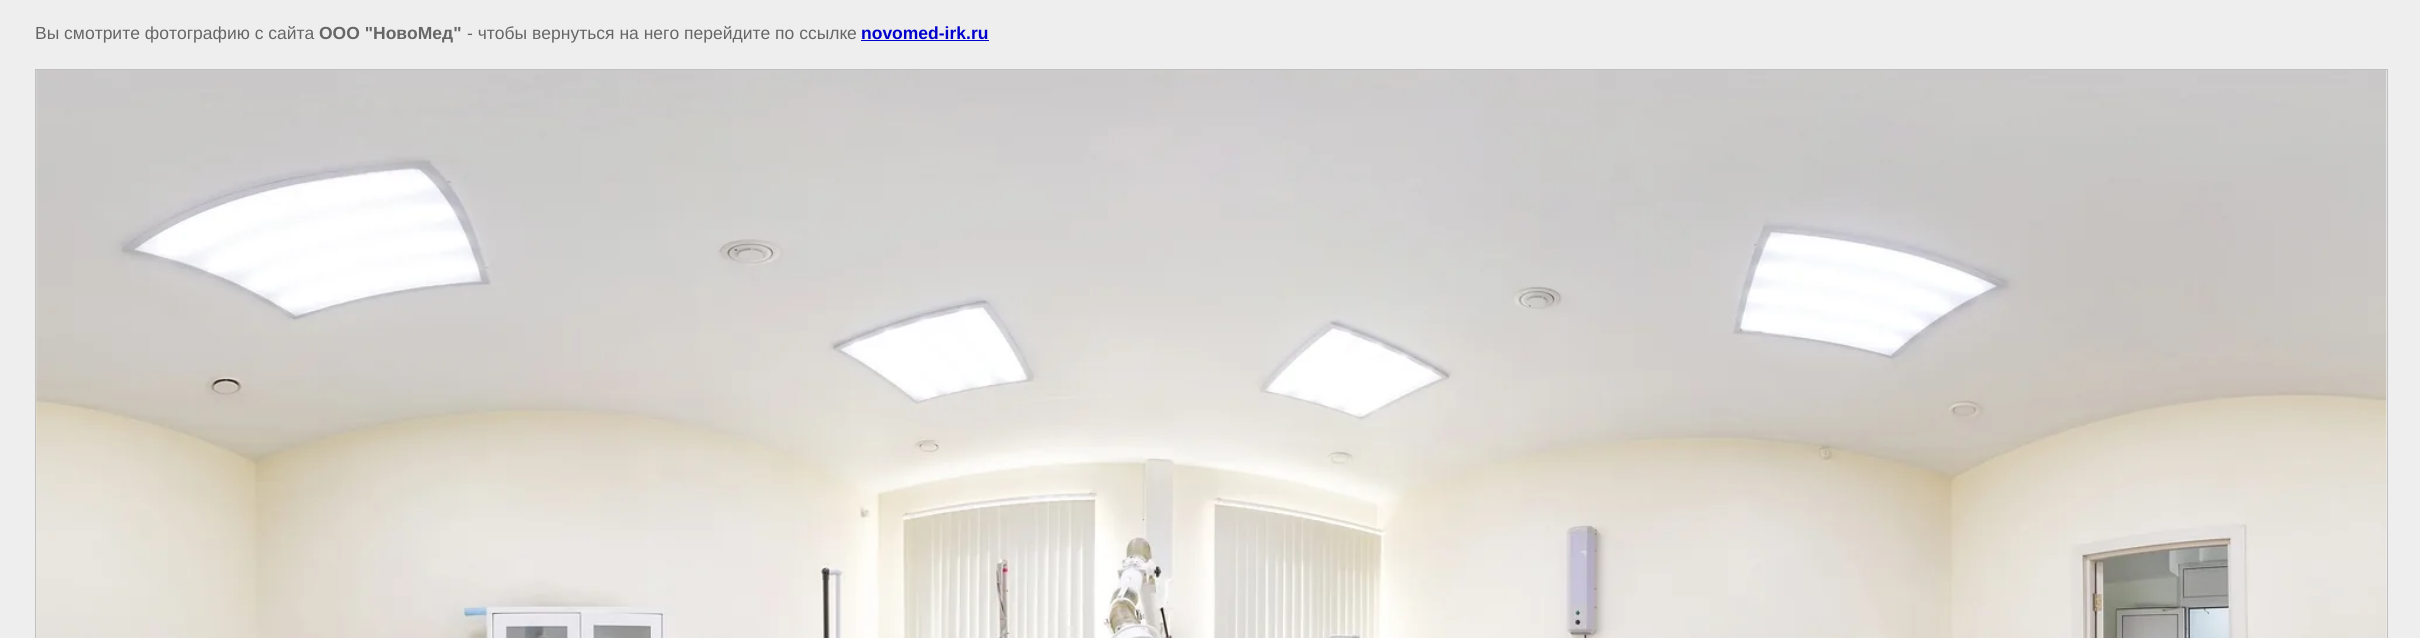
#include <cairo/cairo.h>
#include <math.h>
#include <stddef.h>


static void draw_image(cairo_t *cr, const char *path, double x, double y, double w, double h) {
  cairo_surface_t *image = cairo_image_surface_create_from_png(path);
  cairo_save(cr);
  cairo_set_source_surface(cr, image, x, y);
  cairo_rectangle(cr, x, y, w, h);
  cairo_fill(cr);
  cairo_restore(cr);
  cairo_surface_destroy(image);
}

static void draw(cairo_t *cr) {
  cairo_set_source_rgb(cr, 238 / 255.0, 238 / 255.0, 238 / 255.0);
  cairo_paint(cr);
  cairo_set_source_rgb(cr, 0, 0, 204 / 255.0);
  cairo_rectangle(cr, 861, 40, 128, 1);
  cairo_fill(cr);
  cairo_rectangle(cr, 35.5, 69.5, 2352, 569);
  cairo_set_source_rgb(cr, 192 / 255.0, 192 / 255.0, 192 / 255.0);
  cairo_set_line_width(cr, 1);
  cairo_stroke(cr);
  draw_image(cr, "images/1.png", 36, 70, 2351, 568);
  cairo_select_font_face(cr, "Liberation Sans", CAIRO_FONT_SLANT_NORMAL, CAIRO_FONT_WEIGHT_NORMAL);
  cairo_set_font_size(cr, 17.5);
  cairo_set_source_rgb(cr, 102 / 255.0, 102 / 255.0, 102 / 255.0);
  cairo_move_to(cr, 35, 39);
  cairo_show_text(cr, "Вы смотрите фотографию с сайта");
  cairo_select_font_face(cr, "Liberation Sans", CAIRO_FONT_SLANT_NORMAL, CAIRO_FONT_WEIGHT_BOLD);
  cairo_move_to(cr, 319, 39);
  cairo_show_text(cr, "ООО \"НовоМед\"");
  cairo_select_font_face(cr, "Liberation Sans", CAIRO_FONT_SLANT_NORMAL, CAIRO_FONT_WEIGHT_NORMAL);
  cairo_move_to(cr, 467, 39);
  cairo_show_text(cr, "- чтобы вернуться на него перейдите по ссылке");
  cairo_select_font_face(cr, "Liberation Sans", CAIRO_FONT_SLANT_NORMAL, CAIRO_FONT_WEIGHT_BOLD);
  cairo_set_source_rgb(cr, 0, 0, 204 / 255.0);
  cairo_move_to(cr, 861, 39);
  cairo_show_text(cr, "novomed-irk.ru");
}

int main(void) {
  cairo_surface_t *surface = cairo_image_surface_create(CAIRO_FORMAT_RGB24, 2420, 638);
  cairo_t *cr = cairo_create(surface);
  cairo_font_options_t *options = cairo_font_options_create();
  cairo_font_options_set_hint_metrics(options, CAIRO_HINT_METRICS_OFF);
  cairo_font_options_set_hint_style(options, CAIRO_HINT_STYLE_NONE);
  cairo_set_font_options(cr, options);
  cairo_set_miter_limit(cr, 4);
  draw(cr);
  cairo_surface_write_to_png(surface, "out.png");
  cairo_font_options_destroy(options);
  cairo_destroy(cr);
  cairo_surface_destroy(surface);
  return 0;
}
